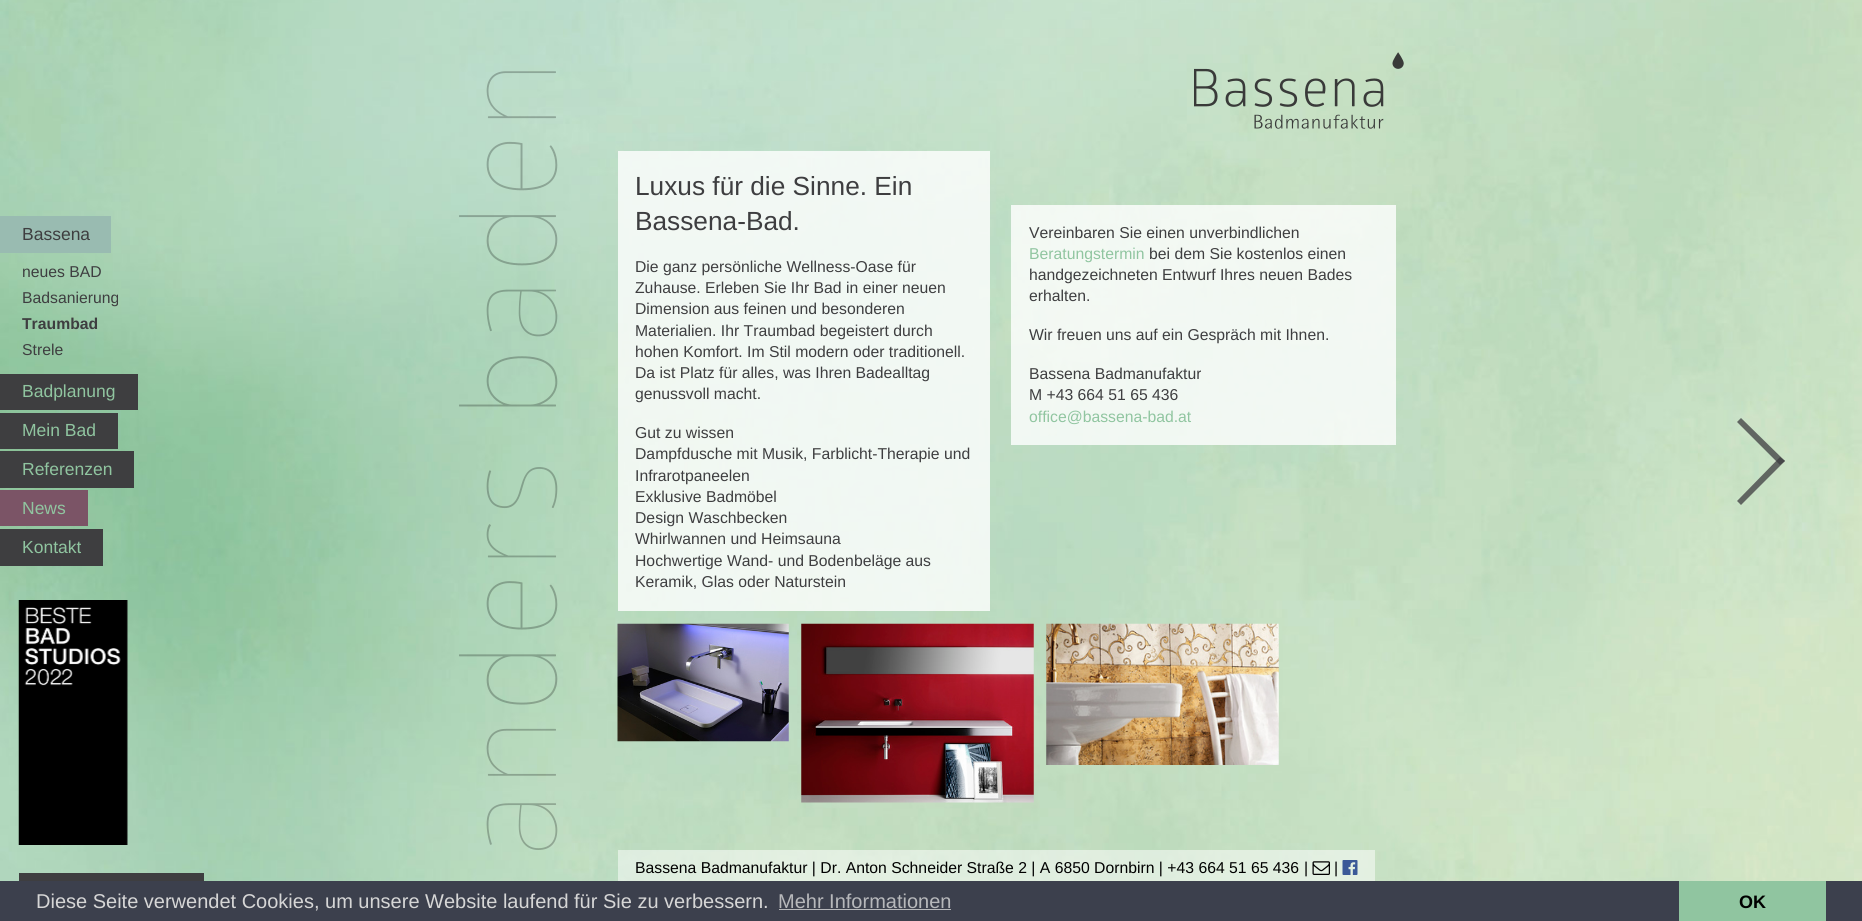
#include <cairo/cairo.h>
#include <math.h>
#include <stddef.h>


static void draw_image(cairo_t *cr, const char *path, double x, double y, double w, double h) {
  cairo_surface_t *image = cairo_image_surface_create_from_png(path);
  cairo_save(cr);
  cairo_set_source_surface(cr, image, x, y);
  cairo_rectangle(cr, x, y, w, h);
  cairo_fill(cr);
  cairo_restore(cr);
  cairo_surface_destroy(image);
}

static void draw(cairo_t *cr) {
  cairo_set_source_rgb(cr, 1, 1, 1);
  cairo_paint(cr);
  draw_image(cr, "images/1.png", 0, 0, 1862, 881);
  cairo_set_source_rgb(cr, 153 / 255.0, 187 / 255.0, 177 / 255.0);
  cairo_rectangle(cr, 0, 216, 111, 37);
  cairo_fill(cr);
  cairo_set_source_rgb(cr, 62 / 255.0, 62 / 255.0, 64 / 255.0);
  cairo_rectangle(cr, 0, 374, 138, 36);
  cairo_fill(cr);
  cairo_rectangle(cr, 0, 413, 118, 36);
  cairo_fill(cr);
  cairo_rectangle(cr, 0, 451, 134, 37);
  cairo_fill(cr);
  cairo_set_source_rgb(cr, 123 / 255.0, 84 / 255.0, 102 / 255.0);
  cairo_rectangle(cr, 0, 490, 88, 36);
  cairo_fill(cr);
  cairo_set_source_rgb(cr, 62 / 255.0, 62 / 255.0, 64 / 255.0);
  cairo_rectangle(cr, 0, 529, 103, 37);
  cairo_fill(cr);
  draw_image(cr, "images/2.png", 18, 600, 110, 245);
  cairo_rectangle(cr, 19, 873, 185, 8);
  cairo_fill(cr);
  draw_image(cr, "images/3.png", 459, 71, 99, 779);
  draw_image(cr, "images/4.png", 1194, 52, 210, 77);
  cairo_set_source_rgba(cr, 1, 1, 1, 0.8);
  cairo_rectangle(cr, 618, 151, 372, 460);
  cairo_fill(cr);
  cairo_rectangle(cr, 1011, 205, 385, 240);
  cairo_fill(cr);
  draw_image(cr, "images/5.png", 617, 623, 172, 119);
  draw_image(cr, "images/6.png", 801, 623, 233, 180);
  draw_image(cr, "images/7.png", 1046, 623, 233, 142);
  cairo_set_source_rgba(cr, 1, 1, 1, 0.5);
  cairo_rectangle(cr, 618, 850, 757, 31);
  cairo_fill(cr);
  draw_image(cr, "images/8.png", 1312, 861, 18, 14);
  draw_image(cr, "images/9.png", 1342, 860, 16, 15);
  cairo_set_source_rgba(cr, 62 / 255.0, 61 / 255.0, 64 / 255.0, 0.75);
  cairo_new_path(cr);
  cairo_move_to(cr, 1737, 422);
  cairo_line_to(cr, 1741, 418);
  cairo_line_to(cr, 1785, 461);
  cairo_line_to(cr, 1780, 465);
  cairo_close_path(cr);
  cairo_fill(cr);
  cairo_new_path(cr);
  cairo_move_to(cr, 1780, 457);
  cairo_line_to(cr, 1785, 461);
  cairo_line_to(cr, 1741, 505);
  cairo_line_to(cr, 1737, 501);
  cairo_close_path(cr);
  cairo_fill(cr);
  cairo_set_source_rgb(cr, 60 / 255.0, 64 / 255.0, 77 / 255.0);
  cairo_rectangle(cr, 0, 881, 1862, 40);
  cairo_fill(cr);
  cairo_set_source_rgb(cr, 183 / 255.0, 184 / 255.0, 187 / 255.0);
  cairo_rectangle(cr, 779, 909, 172, 1);
  cairo_fill(cr);
  cairo_set_source_rgb(cr, 144 / 255.0, 197 / 255.0, 160 / 255.0);
  cairo_rectangle(cr, 1679, 881, 147, 40);
  cairo_fill(cr);
  cairo_select_font_face(cr, "Liberation Sans", CAIRO_FONT_SLANT_NORMAL, CAIRO_FONT_WEIGHT_NORMAL);
  cairo_set_font_size(cr, 17.5);
  cairo_set_source_rgb(cr, 62 / 255.0, 62 / 255.0, 64 / 255.0);
  cairo_move_to(cr, 22, 240);
  cairo_show_text(cr, "Bassena");
  cairo_set_font_size(cr, 15.75);
  cairo_move_to(cr, 22, 277);
  cairo_show_text(cr, "neues BAD");
  cairo_move_to(cr, 22, 303);
  cairo_show_text(cr, "Badsanierung");
  cairo_select_font_face(cr, "Liberation Sans", CAIRO_FONT_SLANT_NORMAL, CAIRO_FONT_WEIGHT_BOLD);
  cairo_move_to(cr, 22, 329);
  cairo_show_text(cr, "Traumbad");
  cairo_select_font_face(cr, "Liberation Sans", CAIRO_FONT_SLANT_NORMAL, CAIRO_FONT_WEIGHT_NORMAL);
  cairo_move_to(cr, 22, 355);
  cairo_show_text(cr, "Strele");
  cairo_set_font_size(cr, 17.5);
  cairo_set_source_rgb(cr, 144 / 255.0, 197 / 255.0, 160 / 255.0);
  cairo_move_to(cr, 22, 397);
  cairo_show_text(cr, "Badplanung");
  cairo_move_to(cr, 22, 436);
  cairo_show_text(cr, "Mein Bad");
  cairo_move_to(cr, 22, 475);
  cairo_show_text(cr, "Referenzen");
  cairo_move_to(cr, 22, 514);
  cairo_show_text(cr, "News");
  cairo_move_to(cr, 22, 553);
  cairo_show_text(cr, "Kontakt");
  cairo_set_font_size(cr, 26.25);
  cairo_set_source_rgb(cr, 62 / 255.0, 62 / 255.0, 64 / 255.0);
  cairo_move_to(cr, 635, 195);
  cairo_show_text(cr, "Luxus für die Sinne. Ein");
  cairo_move_to(cr, 635, 230);
  cairo_show_text(cr, "Bassena-Bad.");
  cairo_set_font_size(cr, 15.75);
  cairo_move_to(cr, 635, 272);
  cairo_show_text(cr, "Die ganz persönliche Wellness-Oase für");
  cairo_move_to(cr, 635, 293);
  cairo_show_text(cr, "Zuhause. Erleben Sie Ihr Bad in einer neuen");
  cairo_move_to(cr, 635, 314);
  cairo_show_text(cr, "Dimension aus feinen und besonderen");
  cairo_move_to(cr, 635, 336);
  cairo_show_text(cr, "Materialien. Ihr Traumbad begeistert durch");
  cairo_move_to(cr, 635, 357);
  cairo_show_text(cr, "hohen Komfort. Im Stil modern oder traditionell.");
  cairo_move_to(cr, 635, 378);
  cairo_show_text(cr, "Da ist Platz für alles, was Ihren Badealltag");
  cairo_move_to(cr, 635, 399);
  cairo_show_text(cr, "genussvoll macht.");
  cairo_move_to(cr, 635, 438);
  cairo_show_text(cr, "Gut zu wissen");
  cairo_move_to(cr, 635, 459);
  cairo_show_text(cr, "Dampfdusche mit Musik, Farblicht-Therapie und");
  cairo_move_to(cr, 635, 481);
  cairo_show_text(cr, "Infrarotpaneelen");
  cairo_move_to(cr, 635, 502);
  cairo_show_text(cr, "Exklusive Badmöbel");
  cairo_move_to(cr, 635, 523);
  cairo_show_text(cr, "Design Waschbecken");
  cairo_move_to(cr, 635, 544);
  cairo_show_text(cr, "Whirlwannen und Heimsauna");
  cairo_move_to(cr, 635, 566);
  cairo_show_text(cr, "Hochwertige Wand- und Bodenbeläge aus");
  cairo_move_to(cr, 635, 587);
  cairo_show_text(cr, "Keramik, Glas oder Naturstein");
  cairo_move_to(cr, 1029, 238);
  cairo_show_text(cr, "Vereinbaren Sie einen unverbindlichen");
  cairo_set_source_rgb(cr, 144 / 255.0, 197 / 255.0, 160 / 255.0);
  cairo_move_to(cr, 1029, 259);
  cairo_show_text(cr, "Beratungstermin");
  cairo_set_source_rgb(cr, 62 / 255.0, 62 / 255.0, 64 / 255.0);
  cairo_move_to(cr, 1149, 259);
  cairo_show_text(cr, "bei dem Sie kostenlos einen");
  cairo_move_to(cr, 1029, 280);
  cairo_show_text(cr, "handgezeichneten Entwurf Ihres neuen Bades");
  cairo_move_to(cr, 1029, 301);
  cairo_show_text(cr, "erhalten.");
  cairo_move_to(cr, 1029, 340);
  cairo_show_text(cr, "Wir freuen uns auf ein Gespräch mit Ihnen.");
  cairo_move_to(cr, 1029, 379);
  cairo_show_text(cr, "Bassena Badmanufaktur");
  cairo_move_to(cr, 1029, 400);
  cairo_show_text(cr, "M +43 664 51 65 436");
  cairo_set_source_rgb(cr, 144 / 255.0, 197 / 255.0, 160 / 255.0);
  cairo_move_to(cr, 1029, 422);
  cairo_show_text(cr, "office@bassena-bad.at");
  cairo_set_source_rgb(cr, 0, 0, 0);
  cairo_move_to(cr, 635, 873);
  cairo_show_text(cr, "Bassena Badmanufaktur | Dr. Anton Schneider Straße 2 | A 6850 Dornbirn | +43 664 51 65 436");
  cairo_move_to(cr, 1304, 873);
  cairo_show_text(cr, "|");
  cairo_move_to(cr, 1334, 873);
  cairo_show_text(cr, "|");
  cairo_set_font_size(cr, 20);
  cairo_set_source_rgb(cr, 214 / 255.0, 214 / 255.0, 214 / 255.0);
  cairo_move_to(cr, 36, 908);
  cairo_show_text(cr, "Diese Seite verwendet Cookies, um unsere Website laufend für Sie zu verbessern.");
  cairo_set_source_rgb(cr, 183 / 255.0, 184 / 255.0, 187 / 255.0);
  cairo_move_to(cr, 778, 908);
  cairo_show_text(cr, "Mehr Informationen");
  cairo_select_font_face(cr, "Liberation Sans", CAIRO_FONT_SLANT_NORMAL, CAIRO_FONT_WEIGHT_BOLD);
  cairo_set_font_size(cr, 18);
  cairo_set_source_rgb(cr, 0, 0, 0);
  cairo_move_to(cr, 1739, 908);
  cairo_show_text(cr, "OK");
}

int main(void) {
  cairo_surface_t *surface = cairo_image_surface_create(CAIRO_FORMAT_RGB24, 1862, 921);
  cairo_t *cr = cairo_create(surface);
  cairo_font_options_t *options = cairo_font_options_create();
  cairo_font_options_set_hint_metrics(options, CAIRO_HINT_METRICS_OFF);
  cairo_font_options_set_hint_style(options, CAIRO_HINT_STYLE_NONE);
  cairo_set_font_options(cr, options);
  cairo_set_miter_limit(cr, 4);
  draw(cr);
  cairo_surface_write_to_png(surface, "out.png");
  cairo_font_options_destroy(options);
  cairo_destroy(cr);
  cairo_surface_destroy(surface);
  return 0;
}
